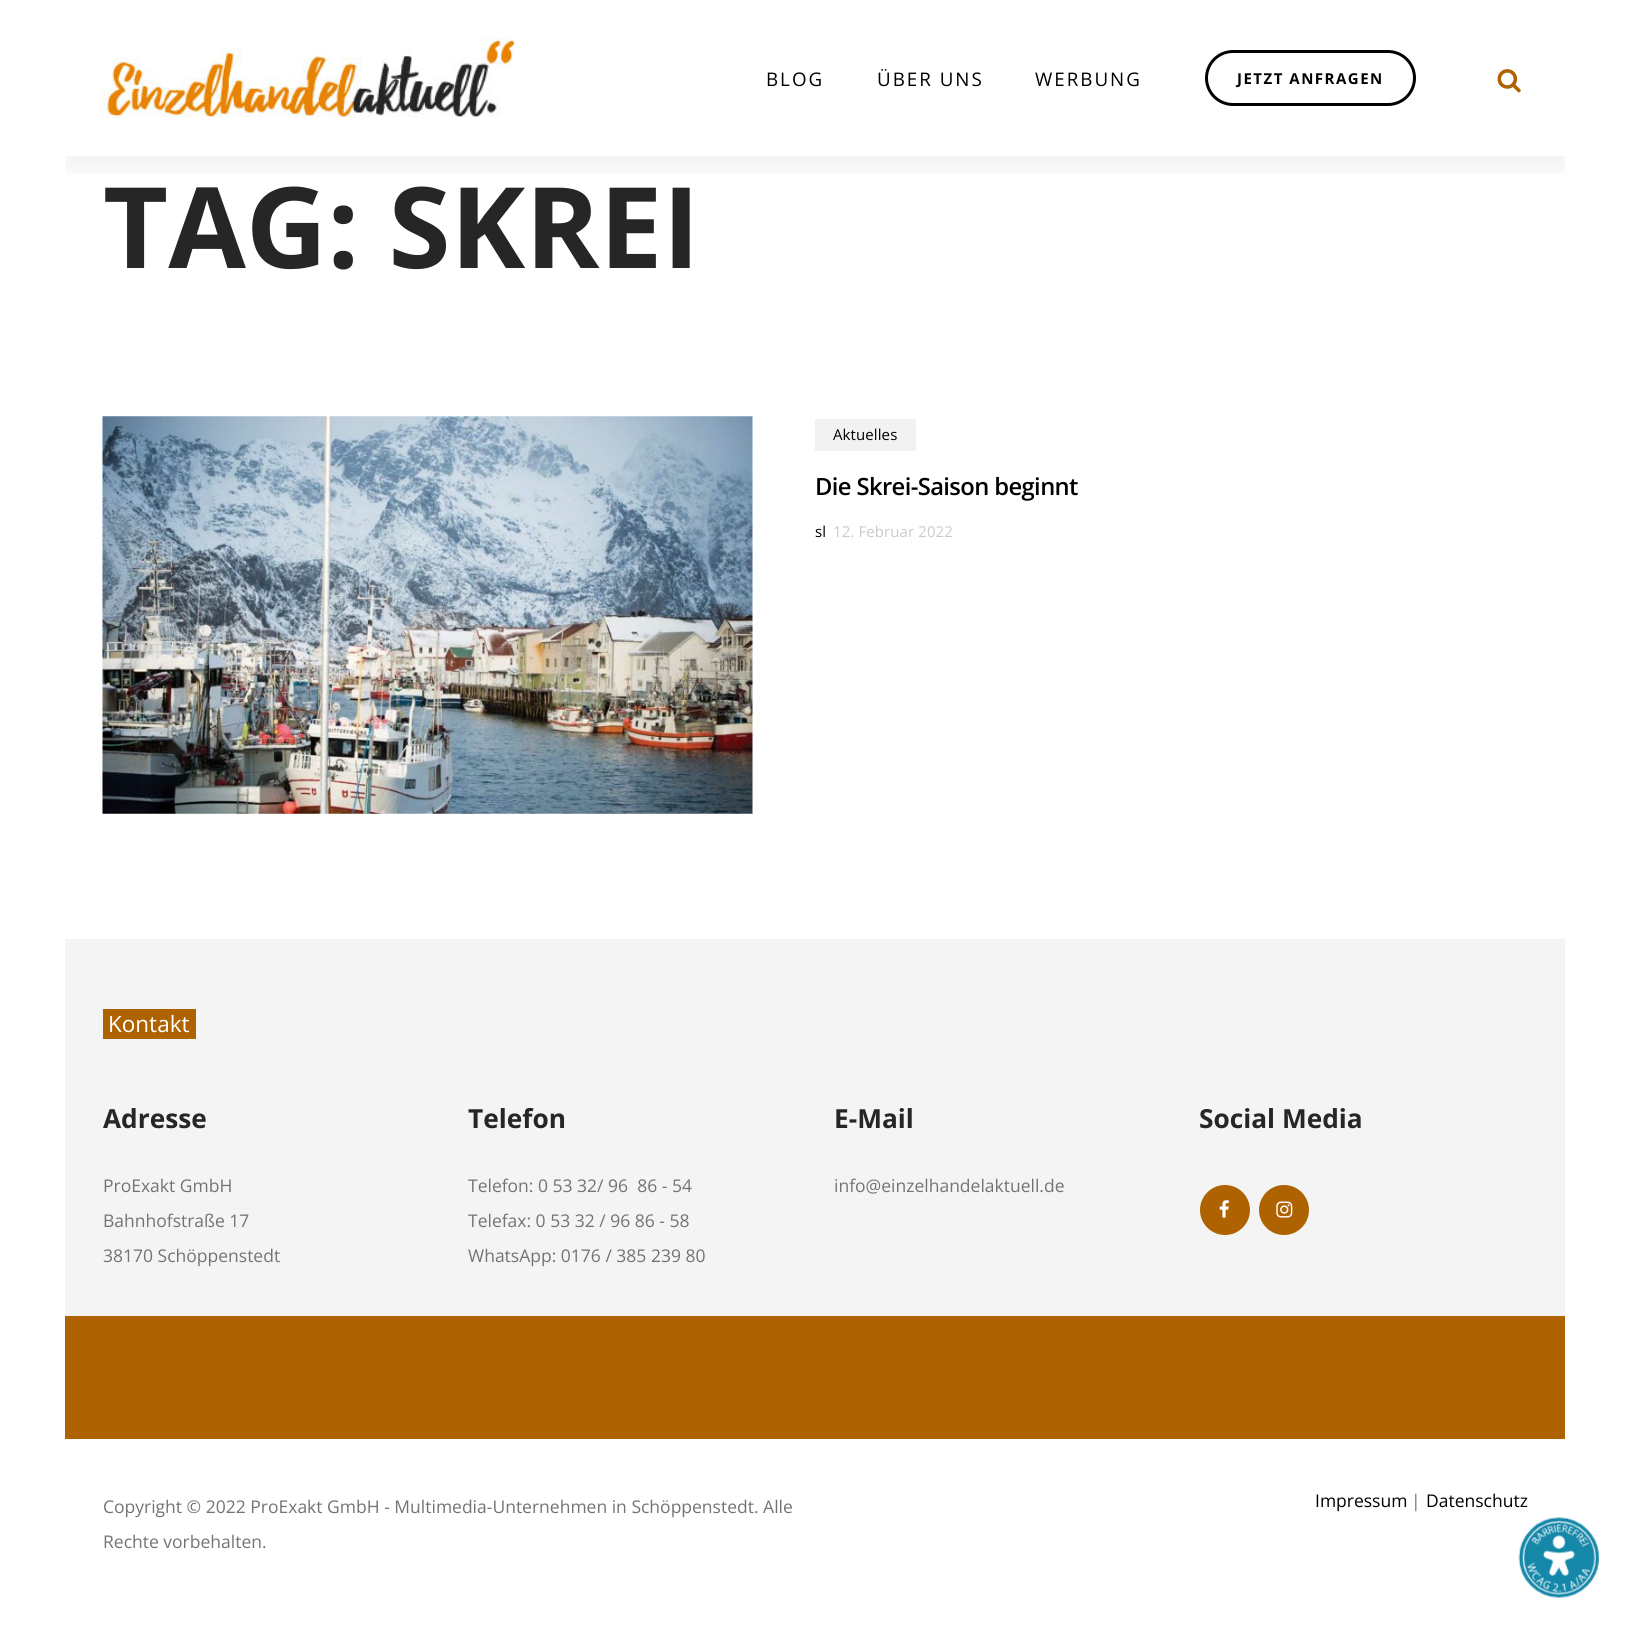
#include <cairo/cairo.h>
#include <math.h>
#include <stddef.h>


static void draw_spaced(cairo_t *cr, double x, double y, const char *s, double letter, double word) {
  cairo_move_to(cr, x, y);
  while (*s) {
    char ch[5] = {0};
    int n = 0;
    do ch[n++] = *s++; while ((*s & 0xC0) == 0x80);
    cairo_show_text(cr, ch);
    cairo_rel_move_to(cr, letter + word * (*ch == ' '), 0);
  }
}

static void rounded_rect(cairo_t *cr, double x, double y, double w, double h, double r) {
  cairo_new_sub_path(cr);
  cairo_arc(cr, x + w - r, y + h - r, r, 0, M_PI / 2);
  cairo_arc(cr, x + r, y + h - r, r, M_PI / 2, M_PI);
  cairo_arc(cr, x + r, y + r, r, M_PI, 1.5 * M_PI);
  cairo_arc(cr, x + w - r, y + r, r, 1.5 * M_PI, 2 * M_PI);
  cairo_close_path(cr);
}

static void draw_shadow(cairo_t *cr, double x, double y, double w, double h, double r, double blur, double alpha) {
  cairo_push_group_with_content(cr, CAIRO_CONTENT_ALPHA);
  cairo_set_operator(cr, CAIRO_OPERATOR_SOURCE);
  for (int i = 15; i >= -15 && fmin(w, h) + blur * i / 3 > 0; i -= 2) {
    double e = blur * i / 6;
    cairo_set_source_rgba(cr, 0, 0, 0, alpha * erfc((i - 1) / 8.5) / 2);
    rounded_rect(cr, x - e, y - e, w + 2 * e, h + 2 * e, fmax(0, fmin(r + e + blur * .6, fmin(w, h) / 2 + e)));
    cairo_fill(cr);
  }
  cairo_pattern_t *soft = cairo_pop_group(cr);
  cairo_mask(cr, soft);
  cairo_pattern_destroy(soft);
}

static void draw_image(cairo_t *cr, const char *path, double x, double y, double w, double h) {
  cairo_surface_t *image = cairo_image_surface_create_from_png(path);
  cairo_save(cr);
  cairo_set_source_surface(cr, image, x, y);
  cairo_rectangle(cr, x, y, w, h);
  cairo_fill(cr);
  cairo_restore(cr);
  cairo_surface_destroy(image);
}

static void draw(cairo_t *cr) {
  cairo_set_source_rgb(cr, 1, 1, 1);
  cairo_paint(cr);
  cairo_save(cr);
  cairo_rectangle(cr, 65, 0, 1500, 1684);
  cairo_clip(cr);
  cairo_rectangle(cr, 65, 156, 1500, 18);
  cairo_clip(cr);
  cairo_set_source_rgb(cr, 0, 0, 0);
  draw_shadow(cr, 65, 13, 1500, 156, 0, 12.5, 0.06);
  cairo_restore(cr);
  draw_image(cr, "images/1.png", 101, 37, 413, 81);
  rounded_rect(cr, 1206.5, 51.5, 208, 53, 26.5);
  cairo_set_source_rgb(cr, 0, 0, 0);
  cairo_set_line_width(cr, 3);
  cairo_stroke(cr);
  draw_image(cr, "images/2.png", 1497, 69, 24, 24);
  draw_image(cr, "images/3.png", 102, 416, 651, 398);
  cairo_set_source_rgb(cr, 242 / 255.0, 242 / 255.0, 242 / 255.0);
  cairo_rectangle(cr, 815, 419, 101, 32);
  cairo_fill(cr);
  cairo_set_source_rgb(cr, 244 / 255.0, 244 / 255.0, 244 / 255.0);
  cairo_rectangle(cr, 65, 939, 1500, 377);
  cairo_fill(cr);
  cairo_set_source_rgb(cr, 174 / 255.0, 99 / 255.0, 0);
  cairo_rectangle(cr, 103, 1009, 93, 30);
  cairo_fill(cr);
  cairo_arc(cr, 1225, 1210, 25, 0, 2 * M_PI);
  cairo_fill(cr);
  draw_image(cr, "images/4.png", 1219, 1200, 10, 18);
  cairo_arc(cr, 1284, 1210, 25, 0, 2 * M_PI);
  cairo_fill(cr);
  draw_image(cr, "images/5.png", 1276, 1201, 17, 17);
  cairo_rectangle(cr, 65, 1316, 1500, 123);
  cairo_fill(cr);
  draw_image(cr, "images/6.png", 1518, 1517, 81, 81);
  cairo_select_font_face(cr, "Open Sans", CAIRO_FONT_SLANT_NORMAL, CAIRO_FONT_WEIGHT_NORMAL);
  cairo_set_font_size(cr, 18.75);
  cairo_set_source_rgb(cr, 0, 0, 0);
  draw_spaced(cr, 766, 86, "BLOG", 2, 0);
  draw_spaced(cr, 877, 86, "ÜBER UNS", 2, 0);
  draw_spaced(cr, 1035, 86, "WERBUNG", 2, 0);
  cairo_select_font_face(cr, "Open Sans", CAIRO_FONT_SLANT_NORMAL, CAIRO_FONT_WEIGHT_BOLD);
  cairo_set_font_size(cr, 15);
  draw_spaced(cr, 1237, 84, "JETZT ANFRAGEN", 1.5, 0);
  cairo_set_font_size(cr, 112.5);
  cairo_set_source_rgb(cr, 38 / 255.0, 38 / 255.0, 38 / 255.0);
  cairo_move_to(cr, 103, 268);
  cairo_show_text(cr, "TAG: SKREI");
  cairo_select_font_face(cr, "Open Sans", CAIRO_FONT_SLANT_NORMAL, CAIRO_FONT_WEIGHT_NORMAL);
  cairo_set_font_size(cr, 15);
  cairo_set_source_rgb(cr, 0, 0, 0);
  draw_spaced(cr, 833, 440, "Aktuelles", 0.1, 0);
  cairo_select_font_face(cr, "Open Sans SemiBold", CAIRO_FONT_SLANT_NORMAL, CAIRO_FONT_WEIGHT_NORMAL);
  cairo_set_font_size(cr, 23.75);
  draw_spaced(cr, 815, 495, "Die Skrei-Saison beginnt", -0.6, 0);
  cairo_select_font_face(cr, "Open Sans", CAIRO_FONT_SLANT_NORMAL, CAIRO_FONT_WEIGHT_NORMAL);
  cairo_set_font_size(cr, 15);
  draw_spaced(cr, 815, 537, "sl", 0.1, 0);
  cairo_set_source_rgb(cr, 202 / 255.0, 202 / 255.0, 202 / 255.0);
  draw_spaced(cr, 833, 537, "12. Februar 2022", 0.1, 0);
  cairo_set_font_size(cr, 22.5);
  cairo_set_source_rgb(cr, 1, 1, 1);
  cairo_move_to(cr, 108, 1032);
  cairo_show_text(cr, "Kontakt");
  cairo_select_font_face(cr, "Open Sans", CAIRO_FONT_SLANT_NORMAL, CAIRO_FONT_WEIGHT_BOLD);
  cairo_set_font_size(cr, 26.25);
  cairo_set_source_rgb(cr, 38 / 255.0, 38 / 255.0, 38 / 255.0);
  cairo_move_to(cr, 103, 1128);
  cairo_show_text(cr, "Adresse");
  cairo_select_font_face(cr, "Open Sans", CAIRO_FONT_SLANT_NORMAL, CAIRO_FONT_WEIGHT_NORMAL);
  cairo_set_font_size(cr, 17.5);
  cairo_set_source_rgb(cr, 115 / 255.0, 115 / 255.0, 115 / 255.0);
  cairo_move_to(cr, 103, 1192);
  cairo_show_text(cr, "ProExakt GmbH");
  cairo_move_to(cr, 103, 1227);
  cairo_show_text(cr, "Bahnhofstraße 17");
  cairo_move_to(cr, 103, 1262);
  cairo_show_text(cr, "38170 Schöppenstedt");
  cairo_select_font_face(cr, "Open Sans", CAIRO_FONT_SLANT_NORMAL, CAIRO_FONT_WEIGHT_BOLD);
  cairo_set_font_size(cr, 26.25);
  cairo_set_source_rgb(cr, 38 / 255.0, 38 / 255.0, 38 / 255.0);
  cairo_move_to(cr, 468, 1128);
  cairo_show_text(cr, "Telefon");
  cairo_select_font_face(cr, "Open Sans", CAIRO_FONT_SLANT_NORMAL, CAIRO_FONT_WEIGHT_NORMAL);
  cairo_set_font_size(cr, 17.5);
  cairo_set_source_rgb(cr, 115 / 255.0, 115 / 255.0, 115 / 255.0);
  cairo_move_to(cr, 468, 1192);
  cairo_show_text(cr, "Telefon: 0 53 32/ 96  86 - 54");
  cairo_move_to(cr, 468, 1227);
  cairo_show_text(cr, "Telefax: 0 53 32 / 96 86 - 58");
  cairo_move_to(cr, 468, 1262);
  cairo_show_text(cr, "WhatsApp: 0176 / 385 239 80");
  cairo_select_font_face(cr, "Open Sans", CAIRO_FONT_SLANT_NORMAL, CAIRO_FONT_WEIGHT_BOLD);
  cairo_set_font_size(cr, 26.25);
  cairo_set_source_rgb(cr, 38 / 255.0, 38 / 255.0, 38 / 255.0);
  cairo_move_to(cr, 834, 1128);
  cairo_show_text(cr, "E-Mail");
  cairo_select_font_face(cr, "Open Sans", CAIRO_FONT_SLANT_NORMAL, CAIRO_FONT_WEIGHT_NORMAL);
  cairo_set_font_size(cr, 17.5);
  cairo_set_source_rgb(cr, 115 / 255.0, 115 / 255.0, 115 / 255.0);
  cairo_move_to(cr, 834, 1192);
  cairo_show_text(cr, "info@einzelhandelaktuell.de");
  cairo_select_font_face(cr, "Open Sans", CAIRO_FONT_SLANT_NORMAL, CAIRO_FONT_WEIGHT_BOLD);
  cairo_set_font_size(cr, 26.25);
  cairo_set_source_rgb(cr, 38 / 255.0, 38 / 255.0, 38 / 255.0);
  cairo_move_to(cr, 1199, 1128);
  cairo_show_text(cr, "Social Media");
  cairo_select_font_face(cr, "Open Sans", CAIRO_FONT_SLANT_NORMAL, CAIRO_FONT_WEIGHT_NORMAL);
  cairo_set_font_size(cr, 17.5);
  cairo_set_source_rgb(cr, 115 / 255.0, 115 / 255.0, 115 / 255.0);
  cairo_move_to(cr, 103, 1513);
  cairo_show_text(cr, "Copyright © 2022 ProExakt GmbH - Multimedia-Unternehmen in Schöppenstedt. Alle");
  cairo_move_to(cr, 103, 1548);
  cairo_show_text(cr, "Rechte vorbehalten.");
  cairo_set_source_rgb(cr, 0, 0, 0);
  cairo_move_to(cr, 1315, 1507);
  cairo_show_text(cr, "Impressum");
  cairo_set_source_rgb(cr, 115 / 255.0, 115 / 255.0, 115 / 255.0);
  cairo_move_to(cr, 1411, 1507);
  cairo_show_text(cr, "|");
  cairo_set_source_rgb(cr, 0, 0, 0);
  cairo_move_to(cr, 1426, 1507);
  cairo_show_text(cr, "Datenschutz");
}

int main(void) {
  cairo_surface_t *surface = cairo_image_surface_create(CAIRO_FORMAT_RGB24, 1630, 1628);
  cairo_t *cr = cairo_create(surface);
  cairo_font_options_t *options = cairo_font_options_create();
  cairo_font_options_set_hint_metrics(options, CAIRO_HINT_METRICS_OFF);
  cairo_font_options_set_hint_style(options, CAIRO_HINT_STYLE_NONE);
  cairo_set_font_options(cr, options);
  cairo_set_miter_limit(cr, 4);
  draw(cr);
  cairo_surface_write_to_png(surface, "out.png");
  cairo_font_options_destroy(options);
  cairo_destroy(cr);
  cairo_surface_destroy(surface);
  return 0;
}
